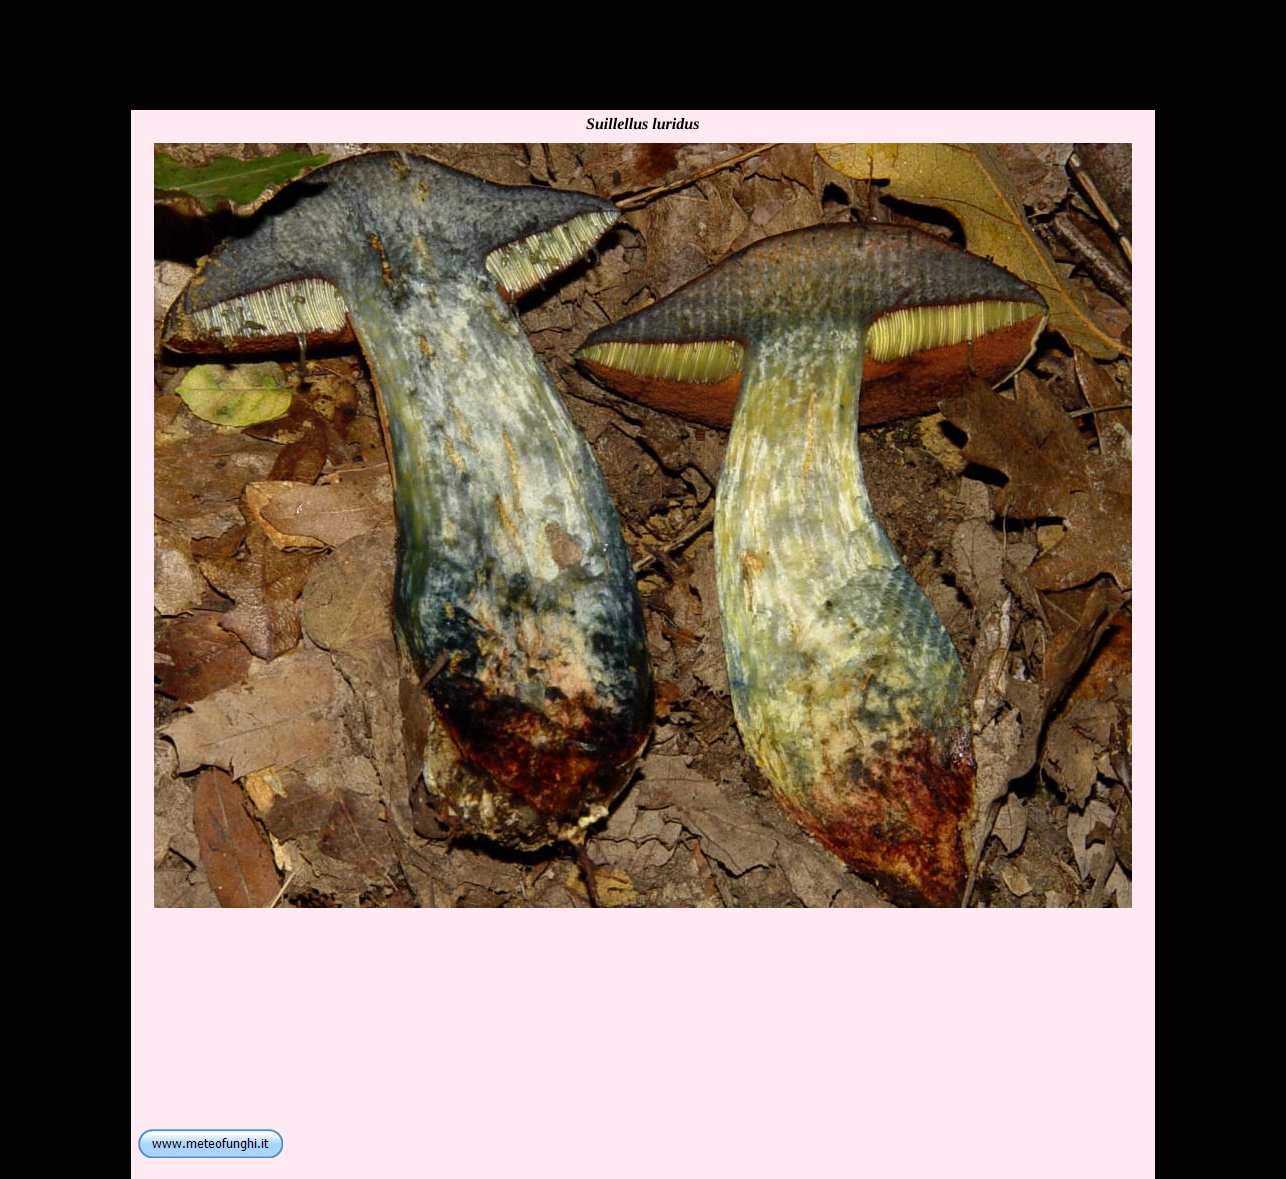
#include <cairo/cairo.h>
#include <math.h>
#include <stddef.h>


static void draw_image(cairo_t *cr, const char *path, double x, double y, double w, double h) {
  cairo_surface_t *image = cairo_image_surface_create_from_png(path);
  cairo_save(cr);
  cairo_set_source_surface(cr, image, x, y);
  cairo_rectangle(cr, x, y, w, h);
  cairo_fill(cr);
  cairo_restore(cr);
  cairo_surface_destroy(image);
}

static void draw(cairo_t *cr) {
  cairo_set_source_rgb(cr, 0, 0, 0);
  cairo_paint(cr);
  cairo_set_source_rgb(cr, 1, 234 / 255.0, 244 / 255.0);
  cairo_rectangle(cr, 131, 110, 1024, 1069);
  cairo_fill(cr);
  draw_image(cr, "images/1.png", 154, 143, 978, 765);
  draw_image(cr, "images/2.png", 138, 1129, 145, 29);
  cairo_select_font_face(cr, "Liberation Serif", CAIRO_FONT_SLANT_ITALIC, CAIRO_FONT_WEIGHT_BOLD);
  cairo_set_font_size(cr, 16);
  cairo_set_source_rgb(cr, 0, 0, 0);
  cairo_move_to(cr, 586, 129);
  cairo_show_text(cr, "Suillellus luridus");
}

int main(void) {
  cairo_surface_t *surface = cairo_image_surface_create(CAIRO_FORMAT_RGB24, 1286, 1179);
  cairo_t *cr = cairo_create(surface);
  cairo_font_options_t *options = cairo_font_options_create();
  cairo_font_options_set_hint_metrics(options, CAIRO_HINT_METRICS_OFF);
  cairo_font_options_set_hint_style(options, CAIRO_HINT_STYLE_NONE);
  cairo_set_font_options(cr, options);
  cairo_set_miter_limit(cr, 4);
  draw(cr);
  cairo_surface_write_to_png(surface, "out.png");
  cairo_font_options_destroy(options);
  cairo_destroy(cr);
  cairo_surface_destroy(surface);
  return 0;
}
